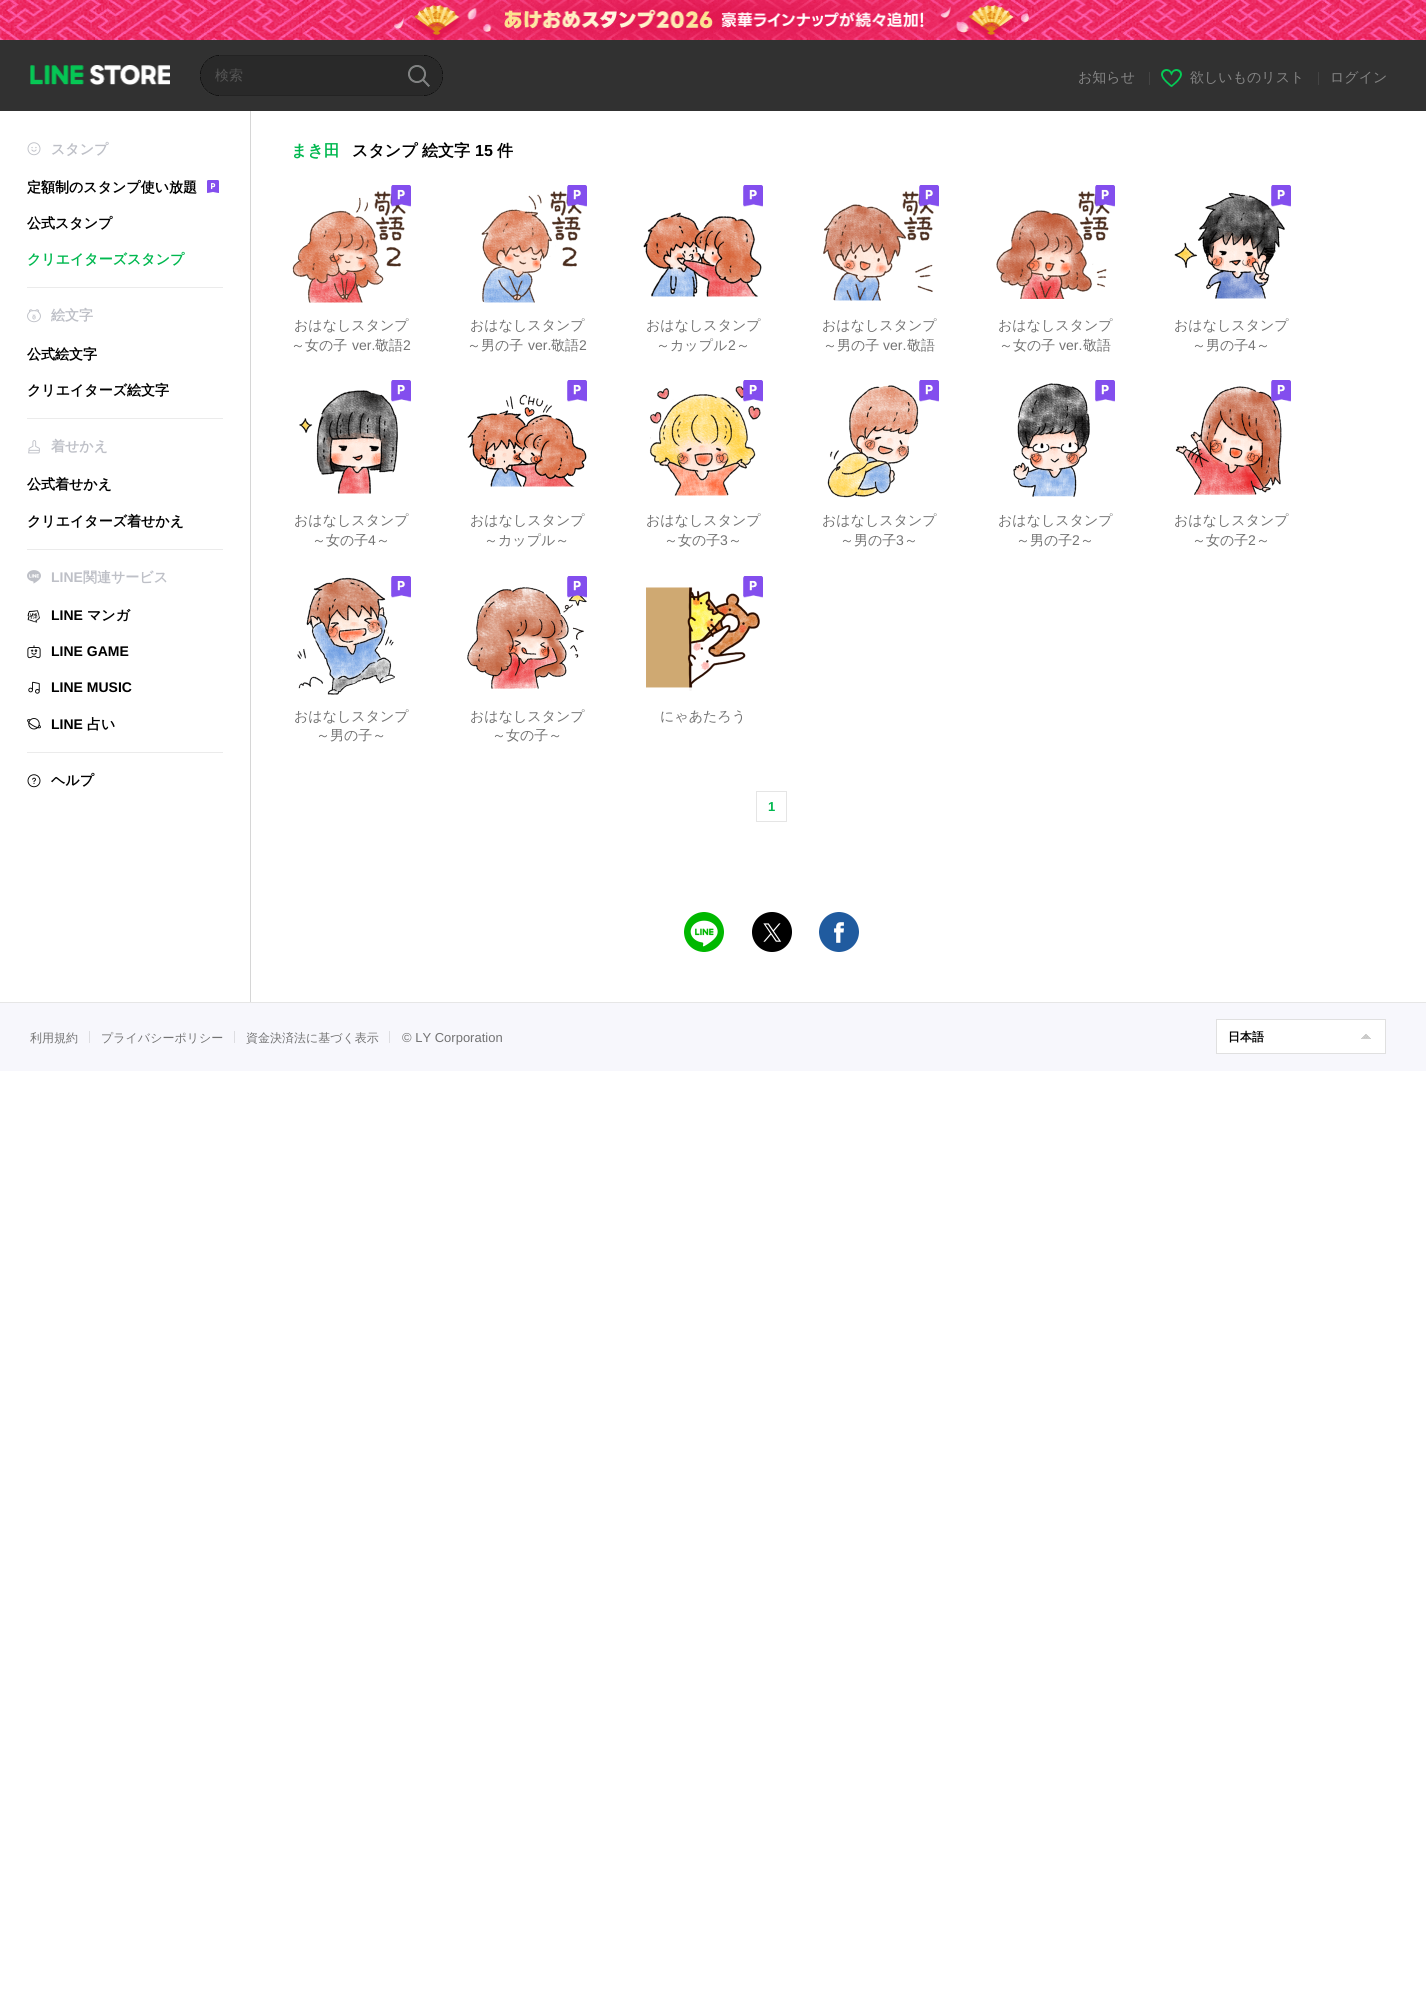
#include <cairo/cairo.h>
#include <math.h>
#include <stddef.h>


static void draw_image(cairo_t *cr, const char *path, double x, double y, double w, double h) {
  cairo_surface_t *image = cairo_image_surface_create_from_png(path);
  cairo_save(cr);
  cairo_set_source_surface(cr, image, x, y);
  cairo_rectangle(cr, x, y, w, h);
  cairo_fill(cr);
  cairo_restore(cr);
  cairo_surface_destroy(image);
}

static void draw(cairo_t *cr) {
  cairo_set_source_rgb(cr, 1, 1, 1);
  cairo_paint(cr);
  draw_image(cr, "images/1.png", 0, 0, 1426, 40);
  cairo_set_source_rgb(cr, 49 / 255.0, 49 / 255.0, 49 / 255.0);
  cairo_rectangle(cr, 0, 40, 1426, 71);
  cairo_fill(cr);
  draw_image(cr, "images/2.png", 30, 65, 140, 20);
  draw_image(cr, "images/3.png", 200, 55, 243, 41);
  draw_image(cr, "images/4.png", 408, 65, 22, 22);
  cairo_set_source_rgb(cr, 68 / 255.0, 68 / 255.0, 68 / 255.0);
  cairo_rectangle(cr, 1149, 72, 1, 13);
  cairo_fill(cr);
  draw_image(cr, "images/5.png", 1161, 69, 21, 18);
  cairo_rectangle(cr, 1318, 72, 1, 13);
  cairo_fill(cr);
  draw_image(cr, "images/6.png", 27, 142, 14, 14);
  draw_image(cr, "images/7.png", 207, 180, 12, 13);
  cairo_set_source_rgb(cr, 235 / 255.0, 235 / 255.0, 235 / 255.0);
  cairo_rectangle(cr, 27, 287, 196, 1);
  cairo_fill(cr);
  draw_image(cr, "images/8.png", 27, 309, 14, 14);
  cairo_rectangle(cr, 27, 418, 196, 1);
  cairo_fill(cr);
  draw_image(cr, "images/9.png", 28, 440, 12, 14);
  cairo_rectangle(cr, 27, 549, 196, 1);
  cairo_fill(cr);
  draw_image(cr, "images/10.png", 27, 570, 14, 14);
  draw_image(cr, "images/11.png", 27, 610, 13, 13);
  draw_image(cr, "images/12.png", 27, 645, 14, 14);
  draw_image(cr, "images/13.png", 28, 681, 12, 13);
  draw_image(cr, "images/14.png", 27, 718, 14, 12);
  cairo_rectangle(cr, 27, 752, 196, 1);
  cairo_fill(cr);
  draw_image(cr, "images/15.png", 27, 774, 14, 14);
  cairo_set_source_rgb(cr, 214 / 255.0, 214 / 255.0, 214 / 255.0);
  cairo_rectangle(cr, 250, 111, 1, 891);
  cairo_fill(cr);
  draw_image(cr, "images/18.png", 292, 191, 114, 112);
  draw_image(cr, "images/16.png", 391, 185, 20, 22);
  draw_image(cr, "images/17.png", 391, 185, 20, 21);
  draw_image(cr, "images/21.png", 481, 191, 101, 112);
  draw_image(cr, "images/19.png", 567, 185, 20, 22);
  draw_image(cr, "images/20.png", 567, 185, 20, 21);
  draw_image(cr, "images/22.png", 743, 185, 20, 22);
  draw_image(cr, "images/23.png", 743, 185, 20, 21);
  draw_image(cr, "images/24.png", 643, 212, 119, 85);
  draw_image(cr, "images/27.png", 823, 191, 111, 110);
  draw_image(cr, "images/25.png", 919, 185, 20, 22);
  draw_image(cr, "images/26.png", 919, 185, 20, 21);
  draw_image(cr, "images/30.png", 996, 191, 114, 108);
  draw_image(cr, "images/28.png", 1095, 185, 20, 22);
  draw_image(cr, "images/29.png", 1095, 185, 20, 21);
  draw_image(cr, "images/31.png", 1174, 192, 111, 107);
  draw_image(cr, "images/22.png", 1271, 185, 20, 22);
  draw_image(cr, "images/23.png", 1271, 185, 20, 21);
  draw_image(cr, "images/32.png", 299, 390, 99, 104);
  draw_image(cr, "images/22.png", 391, 380, 20, 22);
  draw_image(cr, "images/23.png", 391, 380, 20, 21);
  draw_image(cr, "images/33.png", 467, 394, 120, 93);
  draw_image(cr, "images/22.png", 567, 380, 20, 22);
  draw_image(cr, "images/23.png", 567, 380, 20, 21);
  draw_image(cr, "images/36.png", 649, 386, 112, 110);
  draw_image(cr, "images/34.png", 743, 380, 20, 22);
  draw_image(cr, "images/35.png", 743, 380, 20, 21);
  draw_image(cr, "images/37.png", 827, 385, 92, 113);
  draw_image(cr, "images/22.png", 919, 380, 20, 22);
  draw_image(cr, "images/23.png", 919, 380, 20, 21);
  draw_image(cr, "images/38.png", 1013, 383, 77, 114);
  draw_image(cr, "images/22.png", 1095, 380, 20, 22);
  draw_image(cr, "images/23.png", 1095, 380, 20, 21);
  draw_image(cr, "images/41.png", 1175, 386, 107, 109);
  draw_image(cr, "images/39.png", 1271, 380, 20, 22);
  draw_image(cr, "images/40.png", 1271, 380, 20, 21);
  draw_image(cr, "images/42.png", 297, 577, 98, 118);
  draw_image(cr, "images/22.png", 391, 576, 20, 22);
  draw_image(cr, "images/23.png", 391, 576, 20, 21);
  draw_image(cr, "images/45.png", 467, 587, 120, 102);
  draw_image(cr, "images/43.png", 567, 576, 20, 22);
  draw_image(cr, "images/44.png", 567, 576, 20, 21);
  draw_image(cr, "images/46.png", 646, 587, 114, 104);
  draw_image(cr, "images/22.png", 743, 576, 20, 22);
  draw_image(cr, "images/23.png", 743, 576, 20, 21);
  cairo_rectangle(cr, 756.5, 791.5, 30, 30);
  cairo_set_source_rgb(cr, 229 / 255.0, 229 / 255.0, 229 / 255.0);
  cairo_set_line_width(cr, 1);
  cairo_stroke(cr);
  draw_image(cr, "images/47.png", 684, 912, 40, 40);
  draw_image(cr, "images/48.png", 752, 912, 40, 40);
  draw_image(cr, "images/49.png", 819, 912, 40, 40);
  cairo_set_source_rgb(cr, 247 / 255.0, 247 / 255.0, 252 / 255.0);
  cairo_rectangle(cr, 0, 1003, 1426, 68);
  cairo_fill(cr);
  cairo_set_source_rgb(cr, 230 / 255.0, 230 / 255.0, 230 / 255.0);
  cairo_rectangle(cr, 0, 1002, 1426, 1);
  cairo_fill(cr);
  cairo_set_source_rgb(cr, 221 / 255.0, 221 / 255.0, 225 / 255.0);
  cairo_rectangle(cr, 89, 1031, 1, 12);
  cairo_fill(cr);
  cairo_rectangle(cr, 234, 1031, 1, 12);
  cairo_fill(cr);
  cairo_rectangle(cr, 389, 1031, 1, 12);
  cairo_fill(cr);
  cairo_set_source_rgb(cr, 1, 1, 1);
  cairo_rectangle(cr, 1216.5, 1019.5, 169, 34);
  cairo_fill_preserve(cr);
  cairo_set_source_rgb(cr, 224 / 255.0, 224 / 255.0, 224 / 255.0);
  cairo_stroke(cr);
  draw_image(cr, "images/50.png", 1361, 1034, 10, 5);
  cairo_select_font_face(cr, "WenQuanYi Zen Hei Medium", CAIRO_FONT_SLANT_NORMAL, CAIRO_FONT_WEIGHT_NORMAL);
  cairo_set_font_size(cr, 14);
  cairo_set_source_rgb(cr, 84 / 255.0, 84 / 255.0, 84 / 255.0);
  cairo_move_to(cr, 215, 80);
  cairo_show_text(cr, "検索");
  cairo_set_source_rgb(cr, 132 / 255.0, 132 / 255.0, 132 / 255.0);
  cairo_move_to(cr, 1078, 82);
  cairo_show_text(cr, "お知らせ");
  cairo_move_to(cr, 1190, 82);
  cairo_show_text(cr, "欲しいものリスト");
  cairo_move_to(cr, 1330, 82);
  cairo_show_text(cr, "ログイン");
  cairo_select_font_face(cr, "WenQuanYi Zen Hei", CAIRO_FONT_SLANT_NORMAL, CAIRO_FONT_WEIGHT_BOLD);
  cairo_set_source_rgb(cr, 190 / 255.0, 192 / 255.0, 199 / 255.0);
  cairo_move_to(cr, 51, 154);
  cairo_show_text(cr, "スタンプ");
  cairo_set_source_rgb(cr, 0, 0, 0);
  cairo_move_to(cr, 27, 192);
  cairo_show_text(cr, "定額制のスタンプ使い放題");
  cairo_move_to(cr, 27, 228);
  cairo_show_text(cr, "公式スタンプ");
  cairo_set_source_rgb(cr, 0, 184 / 255.0, 79 / 255.0);
  cairo_move_to(cr, 27, 264);
  cairo_show_text(cr, "クリエイターズスタンプ");
  cairo_set_source_rgb(cr, 190 / 255.0, 192 / 255.0, 199 / 255.0);
  cairo_move_to(cr, 51, 320);
  cairo_show_text(cr, "絵文字");
  cairo_set_source_rgb(cr, 0, 0, 0);
  cairo_move_to(cr, 27, 359);
  cairo_show_text(cr, "公式絵文字");
  cairo_move_to(cr, 27, 395);
  cairo_show_text(cr, "クリエイターズ絵文字");
  cairo_set_source_rgb(cr, 190 / 255.0, 192 / 255.0, 199 / 255.0);
  cairo_move_to(cr, 51, 451);
  cairo_show_text(cr, "着せかえ");
  cairo_set_source_rgb(cr, 0, 0, 0);
  cairo_move_to(cr, 27, 489);
  cairo_show_text(cr, "公式着せかえ");
  cairo_move_to(cr, 27, 526);
  cairo_show_text(cr, "クリエイターズ着せかえ");
  cairo_select_font_face(cr, "Liberation Sans", CAIRO_FONT_SLANT_NORMAL, CAIRO_FONT_WEIGHT_BOLD);
  cairo_set_source_rgb(cr, 190 / 255.0, 192 / 255.0, 199 / 255.0);
  cairo_move_to(cr, 51, 582);
  cairo_show_text(cr, "LINE");
  cairo_select_font_face(cr, "WenQuanYi Zen Hei", CAIRO_FONT_SLANT_NORMAL, CAIRO_FONT_WEIGHT_BOLD);
  cairo_move_to(cr, 83, 582);
  cairo_show_text(cr, "関連サービス");
  cairo_select_font_face(cr, "Liberation Sans", CAIRO_FONT_SLANT_NORMAL, CAIRO_FONT_WEIGHT_BOLD);
  cairo_set_source_rgb(cr, 0, 0, 0);
  cairo_move_to(cr, 51, 620);
  cairo_show_text(cr, "LINE");
  cairo_select_font_face(cr, "WenQuanYi Zen Hei", CAIRO_FONT_SLANT_NORMAL, CAIRO_FONT_WEIGHT_BOLD);
  cairo_move_to(cr, 87, 620);
  cairo_show_text(cr, "マンガ");
  cairo_select_font_face(cr, "Liberation Sans", CAIRO_FONT_SLANT_NORMAL, CAIRO_FONT_WEIGHT_BOLD);
  cairo_move_to(cr, 51, 656);
  cairo_show_text(cr, "LINE GAME");
  cairo_move_to(cr, 51, 692);
  cairo_show_text(cr, "LINE MUSIC");
  cairo_move_to(cr, 51, 729);
  cairo_show_text(cr, "LINE");
  cairo_select_font_face(cr, "WenQuanYi Zen Hei", CAIRO_FONT_SLANT_NORMAL, CAIRO_FONT_WEIGHT_BOLD);
  cairo_move_to(cr, 87, 729);
  cairo_show_text(cr, "占い");
  cairo_move_to(cr, 51, 785);
  cairo_show_text(cr, "ヘルプ");
  cairo_set_font_size(cr, 16);
  cairo_set_source_rgb(cr, 0, 184 / 255.0, 79 / 255.0);
  cairo_move_to(cr, 291, 156);
  cairo_show_text(cr, "まき田");
  cairo_set_source_rgb(cr, 0, 0, 0);
  cairo_move_to(cr, 352, 156);
  cairo_show_text(cr, "スタンプ");
  cairo_move_to(cr, 422, 156);
  cairo_show_text(cr, "絵文字");
  cairo_select_font_face(cr, "Liberation Sans", CAIRO_FONT_SLANT_NORMAL, CAIRO_FONT_WEIGHT_BOLD);
  cairo_move_to(cr, 475, 156);
  cairo_show_text(cr, "15");
  cairo_select_font_face(cr, "WenQuanYi Zen Hei", CAIRO_FONT_SLANT_NORMAL, CAIRO_FONT_WEIGHT_BOLD);
  cairo_move_to(cr, 497, 156);
  cairo_show_text(cr, "件");
  cairo_select_font_face(cr, "WenQuanYi Zen Hei Medium", CAIRO_FONT_SLANT_NORMAL, CAIRO_FONT_WEIGHT_NORMAL);
  cairo_set_font_size(cr, 14);
  cairo_set_source_rgb(cr, 115 / 255.0, 115 / 255.0, 115 / 255.0);
  cairo_move_to(cr, 294, 330);
  cairo_show_text(cr, "おはなしスタンプ");
  cairo_move_to(cr, 291, 350);
  cairo_show_text(cr, "～女の子");
  cairo_select_font_face(cr, "Liberation Sans", CAIRO_FONT_SLANT_NORMAL, CAIRO_FONT_WEIGHT_NORMAL);
  cairo_move_to(cr, 352, 350);
  cairo_show_text(cr, "ver.");
  cairo_select_font_face(cr, "WenQuanYi Zen Hei Medium", CAIRO_FONT_SLANT_NORMAL, CAIRO_FONT_WEIGHT_NORMAL);
  cairo_move_to(cr, 375, 350);
  cairo_show_text(cr, "敬語");
  cairo_select_font_face(cr, "Liberation Sans", CAIRO_FONT_SLANT_NORMAL, CAIRO_FONT_WEIGHT_NORMAL);
  cairo_move_to(cr, 403, 350);
  cairo_show_text(cr, "2");
  cairo_select_font_face(cr, "WenQuanYi Zen Hei Medium", CAIRO_FONT_SLANT_NORMAL, CAIRO_FONT_WEIGHT_NORMAL);
  cairo_move_to(cr, 470, 330);
  cairo_show_text(cr, "おはなしスタンプ");
  cairo_move_to(cr, 467, 350);
  cairo_show_text(cr, "～男の子");
  cairo_select_font_face(cr, "Liberation Sans", CAIRO_FONT_SLANT_NORMAL, CAIRO_FONT_WEIGHT_NORMAL);
  cairo_move_to(cr, 528, 350);
  cairo_show_text(cr, "ver.");
  cairo_select_font_face(cr, "WenQuanYi Zen Hei Medium", CAIRO_FONT_SLANT_NORMAL, CAIRO_FONT_WEIGHT_NORMAL);
  cairo_move_to(cr, 551, 350);
  cairo_show_text(cr, "敬語");
  cairo_select_font_face(cr, "Liberation Sans", CAIRO_FONT_SLANT_NORMAL, CAIRO_FONT_WEIGHT_NORMAL);
  cairo_move_to(cr, 579, 350);
  cairo_show_text(cr, "2");
  cairo_select_font_face(cr, "WenQuanYi Zen Hei Medium", CAIRO_FONT_SLANT_NORMAL, CAIRO_FONT_WEIGHT_NORMAL);
  cairo_move_to(cr, 646, 330);
  cairo_show_text(cr, "おはなしスタンプ");
  cairo_move_to(cr, 656, 350);
  cairo_show_text(cr, "～カップル");
  cairo_select_font_face(cr, "Liberation Sans", CAIRO_FONT_SLANT_NORMAL, CAIRO_FONT_WEIGHT_NORMAL);
  cairo_move_to(cr, 728, 350);
  cairo_show_text(cr, "2");
  cairo_select_font_face(cr, "WenQuanYi Zen Hei Medium", CAIRO_FONT_SLANT_NORMAL, CAIRO_FONT_WEIGHT_NORMAL);
  cairo_move_to(cr, 736, 350);
  cairo_show_text(cr, "～");
  cairo_move_to(cr, 822, 330);
  cairo_show_text(cr, "おはなしスタンプ");
  cairo_move_to(cr, 823, 350);
  cairo_show_text(cr, "～男の子");
  cairo_select_font_face(cr, "Liberation Sans", CAIRO_FONT_SLANT_NORMAL, CAIRO_FONT_WEIGHT_NORMAL);
  cairo_move_to(cr, 883, 350);
  cairo_show_text(cr, "ver.");
  cairo_select_font_face(cr, "WenQuanYi Zen Hei Medium", CAIRO_FONT_SLANT_NORMAL, CAIRO_FONT_WEIGHT_NORMAL);
  cairo_move_to(cr, 907, 350);
  cairo_show_text(cr, "敬語");
  cairo_move_to(cr, 998, 330);
  cairo_show_text(cr, "おはなしスタンプ");
  cairo_move_to(cr, 999, 350);
  cairo_show_text(cr, "～女の子");
  cairo_select_font_face(cr, "Liberation Sans", CAIRO_FONT_SLANT_NORMAL, CAIRO_FONT_WEIGHT_NORMAL);
  cairo_move_to(cr, 1059, 350);
  cairo_show_text(cr, "ver.");
  cairo_select_font_face(cr, "WenQuanYi Zen Hei Medium", CAIRO_FONT_SLANT_NORMAL, CAIRO_FONT_WEIGHT_NORMAL);
  cairo_move_to(cr, 1083, 350);
  cairo_show_text(cr, "敬語");
  cairo_move_to(cr, 1174, 330);
  cairo_show_text(cr, "おはなしスタンプ");
  cairo_move_to(cr, 1192, 350);
  cairo_show_text(cr, "～男の子");
  cairo_select_font_face(cr, "Liberation Sans", CAIRO_FONT_SLANT_NORMAL, CAIRO_FONT_WEIGHT_NORMAL);
  cairo_move_to(cr, 1248, 350);
  cairo_show_text(cr, "4");
  cairo_select_font_face(cr, "WenQuanYi Zen Hei Medium", CAIRO_FONT_SLANT_NORMAL, CAIRO_FONT_WEIGHT_NORMAL);
  cairo_move_to(cr, 1256, 350);
  cairo_show_text(cr, "～");
  cairo_move_to(cr, 294, 525);
  cairo_show_text(cr, "おはなしスタンプ");
  cairo_move_to(cr, 312, 545);
  cairo_show_text(cr, "～女の子");
  cairo_select_font_face(cr, "Liberation Sans", CAIRO_FONT_SLANT_NORMAL, CAIRO_FONT_WEIGHT_NORMAL);
  cairo_move_to(cr, 368, 545);
  cairo_show_text(cr, "4");
  cairo_select_font_face(cr, "WenQuanYi Zen Hei Medium", CAIRO_FONT_SLANT_NORMAL, CAIRO_FONT_WEIGHT_NORMAL);
  cairo_move_to(cr, 376, 545);
  cairo_show_text(cr, "～");
  cairo_move_to(cr, 470, 525);
  cairo_show_text(cr, "おはなしスタンプ");
  cairo_move_to(cr, 484, 545);
  cairo_show_text(cr, "～カップル～");
  cairo_move_to(cr, 646, 525);
  cairo_show_text(cr, "おはなしスタンプ");
  cairo_move_to(cr, 664, 545);
  cairo_show_text(cr, "～女の子");
  cairo_select_font_face(cr, "Liberation Sans", CAIRO_FONT_SLANT_NORMAL, CAIRO_FONT_WEIGHT_NORMAL);
  cairo_move_to(cr, 720, 545);
  cairo_show_text(cr, "3");
  cairo_select_font_face(cr, "WenQuanYi Zen Hei Medium", CAIRO_FONT_SLANT_NORMAL, CAIRO_FONT_WEIGHT_NORMAL);
  cairo_move_to(cr, 728, 545);
  cairo_show_text(cr, "～");
  cairo_move_to(cr, 822, 525);
  cairo_show_text(cr, "おはなしスタンプ");
  cairo_move_to(cr, 840, 545);
  cairo_show_text(cr, "～男の子");
  cairo_select_font_face(cr, "Liberation Sans", CAIRO_FONT_SLANT_NORMAL, CAIRO_FONT_WEIGHT_NORMAL);
  cairo_move_to(cr, 896, 545);
  cairo_show_text(cr, "3");
  cairo_select_font_face(cr, "WenQuanYi Zen Hei Medium", CAIRO_FONT_SLANT_NORMAL, CAIRO_FONT_WEIGHT_NORMAL);
  cairo_move_to(cr, 904, 545);
  cairo_show_text(cr, "～");
  cairo_move_to(cr, 998, 525);
  cairo_show_text(cr, "おはなしスタンプ");
  cairo_move_to(cr, 1016, 545);
  cairo_show_text(cr, "～男の子");
  cairo_select_font_face(cr, "Liberation Sans", CAIRO_FONT_SLANT_NORMAL, CAIRO_FONT_WEIGHT_NORMAL);
  cairo_move_to(cr, 1072, 545);
  cairo_show_text(cr, "2");
  cairo_select_font_face(cr, "WenQuanYi Zen Hei Medium", CAIRO_FONT_SLANT_NORMAL, CAIRO_FONT_WEIGHT_NORMAL);
  cairo_move_to(cr, 1080, 545);
  cairo_show_text(cr, "～");
  cairo_move_to(cr, 1174, 525);
  cairo_show_text(cr, "おはなしスタンプ");
  cairo_move_to(cr, 1192, 545);
  cairo_show_text(cr, "～女の子");
  cairo_select_font_face(cr, "Liberation Sans", CAIRO_FONT_SLANT_NORMAL, CAIRO_FONT_WEIGHT_NORMAL);
  cairo_move_to(cr, 1248, 545);
  cairo_show_text(cr, "2");
  cairo_select_font_face(cr, "WenQuanYi Zen Hei Medium", CAIRO_FONT_SLANT_NORMAL, CAIRO_FONT_WEIGHT_NORMAL);
  cairo_move_to(cr, 1256, 545);
  cairo_show_text(cr, "～");
  cairo_move_to(cr, 294, 721);
  cairo_show_text(cr, "おはなしスタンプ");
  cairo_move_to(cr, 316, 740);
  cairo_show_text(cr, "～男の子～");
  cairo_move_to(cr, 470, 721);
  cairo_show_text(cr, "おはなしスタンプ");
  cairo_move_to(cr, 492, 740);
  cairo_show_text(cr, "～女の子～");
  cairo_move_to(cr, 660, 721);
  cairo_show_text(cr, "にゃあたろう");
  cairo_select_font_face(cr, "Liberation Sans", CAIRO_FONT_SLANT_NORMAL, CAIRO_FONT_WEIGHT_BOLD);
  cairo_set_font_size(cr, 13);
  cairo_set_source_rgb(cr, 0, 184 / 255.0, 79 / 255.0);
  cairo_move_to(cr, 768, 811);
  cairo_show_text(cr, "1");
  cairo_select_font_face(cr, "WenQuanYi Zen Hei Medium", CAIRO_FONT_SLANT_NORMAL, CAIRO_FONT_WEIGHT_NORMAL);
  cairo_set_font_size(cr, 12);
  cairo_set_source_rgb(cr, 115 / 255.0, 115 / 255.0, 115 / 255.0);
  cairo_move_to(cr, 30, 1042);
  cairo_show_text(cr, "利用規約");
  cairo_move_to(cr, 101, 1042);
  cairo_show_text(cr, "プライバシーポリシー");
  cairo_move_to(cr, 246, 1042);
  cairo_show_text(cr, "資金決済法に基づく表示");
  cairo_select_font_face(cr, "Liberation Sans", CAIRO_FONT_SLANT_NORMAL, CAIRO_FONT_WEIGHT_NORMAL);
  cairo_set_font_size(cr, 13);
  cairo_move_to(cr, 402, 1042);
  cairo_show_text(cr, "© LY Corporation");
  cairo_select_font_face(cr, "WenQuanYi Zen Hei", CAIRO_FONT_SLANT_NORMAL, CAIRO_FONT_WEIGHT_BOLD);
  cairo_set_font_size(cr, 12);
  cairo_set_source_rgb(cr, 0, 0, 0);
  cairo_move_to(cr, 1228, 1041);
  cairo_show_text(cr, "日本語");
}

int main(void) {
  cairo_surface_t *surface = cairo_image_surface_create(CAIRO_FORMAT_RGB24, 1426, 2001);
  cairo_t *cr = cairo_create(surface);
  cairo_font_options_t *options = cairo_font_options_create();
  cairo_font_options_set_hint_metrics(options, CAIRO_HINT_METRICS_OFF);
  cairo_font_options_set_hint_style(options, CAIRO_HINT_STYLE_NONE);
  cairo_set_font_options(cr, options);
  cairo_set_miter_limit(cr, 4);
  draw(cr);
  cairo_surface_write_to_png(surface, "out.png");
  cairo_font_options_destroy(options);
  cairo_destroy(cr);
  cairo_surface_destroy(surface);
  return 0;
}
